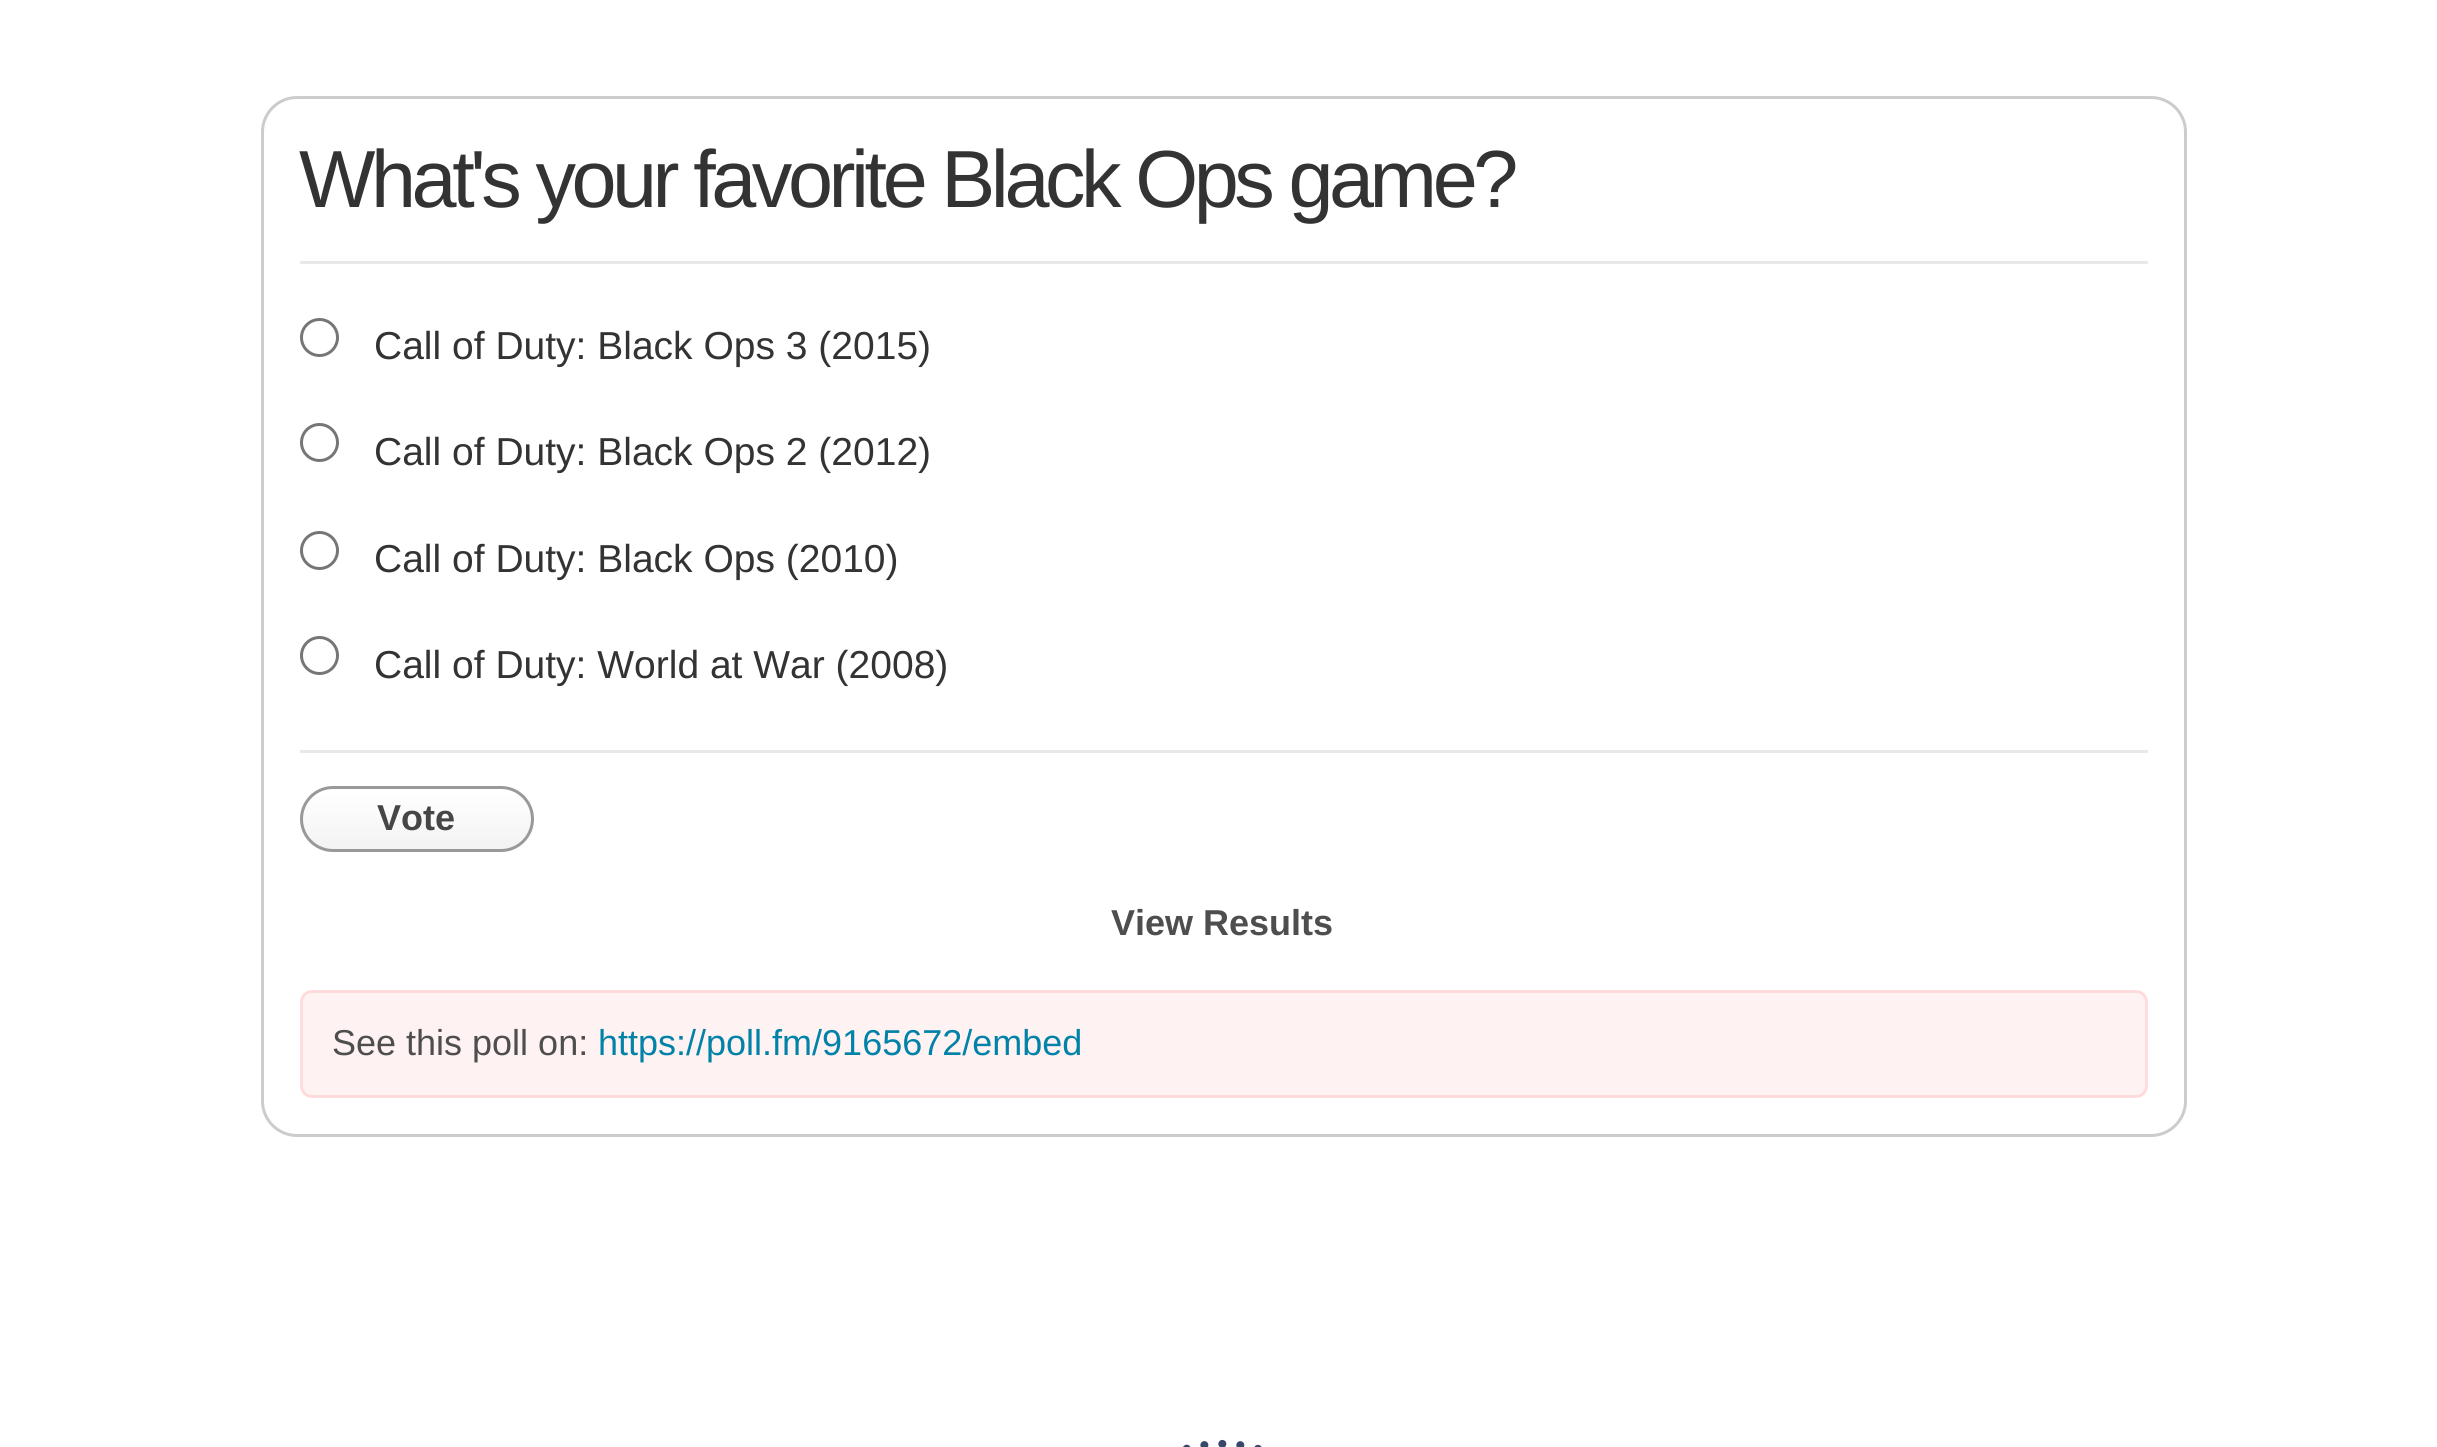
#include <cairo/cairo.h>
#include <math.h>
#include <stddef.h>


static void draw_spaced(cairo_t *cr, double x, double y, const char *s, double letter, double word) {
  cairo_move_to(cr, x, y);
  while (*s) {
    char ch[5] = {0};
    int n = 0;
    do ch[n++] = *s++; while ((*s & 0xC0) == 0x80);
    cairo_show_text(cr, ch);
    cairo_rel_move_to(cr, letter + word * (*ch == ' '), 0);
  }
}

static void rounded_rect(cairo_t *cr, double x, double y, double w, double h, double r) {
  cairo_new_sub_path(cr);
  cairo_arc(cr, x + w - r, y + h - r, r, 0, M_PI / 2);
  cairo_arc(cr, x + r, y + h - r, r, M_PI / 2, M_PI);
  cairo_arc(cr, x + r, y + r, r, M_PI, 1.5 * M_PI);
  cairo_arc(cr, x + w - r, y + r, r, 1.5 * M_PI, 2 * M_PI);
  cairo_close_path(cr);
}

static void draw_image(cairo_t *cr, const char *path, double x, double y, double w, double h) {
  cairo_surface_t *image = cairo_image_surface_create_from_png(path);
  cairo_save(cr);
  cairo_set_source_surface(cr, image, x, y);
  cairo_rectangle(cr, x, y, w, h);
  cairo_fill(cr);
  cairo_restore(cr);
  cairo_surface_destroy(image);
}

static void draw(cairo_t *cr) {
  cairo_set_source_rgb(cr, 1, 1, 1);
  cairo_paint(cr);
  rounded_rect(cr, 262.5, 97.5, 1923, 1038, 34.5);
  cairo_set_source_rgb(cr, 204 / 255.0, 204 / 255.0, 204 / 255.0);
  cairo_set_line_width(cr, 3);
  cairo_stroke(cr);
  cairo_set_source_rgb(cr, 232 / 255.0, 232 / 255.0, 232 / 255.0);
  cairo_rectangle(cr, 300, 261, 1848, 3);
  cairo_fill(cr);
  cairo_rectangle(cr, 300, 750, 1848, 3);
  cairo_fill(cr);
  cairo_arc(cr, 319.5, 337.5, 18, 0, 2 * M_PI);
  cairo_set_source_rgb(cr, 118 / 255.0, 118 / 255.0, 118 / 255.0);
  cairo_stroke(cr);
  cairo_arc(cr, 319.5, 442.5, 18, 0, 2 * M_PI);
  cairo_stroke(cr);
  cairo_arc(cr, 319.5, 550.5, 18, 0, 2 * M_PI);
  cairo_stroke(cr);
  cairo_arc(cr, 319.5, 655.5, 18, 0, 2 * M_PI);
  cairo_stroke(cr);
  draw_image(cr, "images/1.png", 300, 789, 234, 63);
  rounded_rect(cr, 301.5, 787.5, 231, 63, 31.5);
  cairo_set_source_rgb(cr, 153 / 255.0, 153 / 255.0, 153 / 255.0);
  cairo_stroke(cr);
  cairo_set_source_rgb(cr, 1, 242 / 255.0, 242 / 255.0);
  rounded_rect(cr, 301.5, 991.5, 1845, 105, 10.5);
  cairo_fill_preserve(cr);
  cairo_set_source_rgb(cr, 1, 220 / 255.0, 220 / 255.0);
  cairo_stroke(cr);
  draw_image(cr, "images/2.png", 1183, 1439, 79, 8);
  cairo_select_font_face(cr, "Liberation Sans", CAIRO_FONT_SLANT_NORMAL, CAIRO_FONT_WEIGHT_NORMAL);
  cairo_set_font_size(cr, 81);
  cairo_set_source_rgb(cr, 51 / 255.0, 51 / 255.0, 51 / 255.0);
  draw_spaced(cr, 299, 207, "What's your favorite Black Ops game?", -4.45, 0);
  cairo_set_font_size(cr, 39);
  cairo_move_to(cr, 374, 359);
  cairo_show_text(cr, "Call of Duty: Black Ops 3 (2015)");
  cairo_move_to(cr, 374, 465);
  cairo_show_text(cr, "Call of Duty: Black Ops 2 (2012)");
  cairo_move_to(cr, 374, 572);
  cairo_show_text(cr, "Call of Duty: Black Ops (2010)");
  cairo_move_to(cr, 374, 678);
  cairo_show_text(cr, "Call of Duty: World at War (2008)");
  cairo_select_font_face(cr, "Liberation Sans", CAIRO_FONT_SLANT_NORMAL, CAIRO_FONT_WEIGHT_BOLD);
  cairo_set_font_size(cr, 36);
  cairo_set_source_rgb(cr, 70 / 255.0, 70 / 255.0, 70 / 255.0);
  cairo_move_to(cr, 377, 830);
  cairo_show_text(cr, "Vote");
  cairo_set_source_rgb(cr, 78 / 255.0, 78 / 255.0, 78 / 255.0);
  cairo_move_to(cr, 1111, 935);
  cairo_show_text(cr, "View Results");
  cairo_select_font_face(cr, "Liberation Sans", CAIRO_FONT_SLANT_NORMAL, CAIRO_FONT_WEIGHT_NORMAL);
  cairo_move_to(cr, 332, 1055);
  cairo_show_text(cr, "See this poll on:");
  cairo_set_source_rgb(cr, 1 / 255.0, 130 / 255.0, 168 / 255.0);
  cairo_move_to(cr, 598, 1055);
  cairo_show_text(cr, "https://poll.fm/9165672/embed");
}

int main(void) {
  cairo_surface_t *surface = cairo_image_surface_create(CAIRO_FORMAT_RGB24, 2437, 1447);
  cairo_t *cr = cairo_create(surface);
  cairo_font_options_t *options = cairo_font_options_create();
  cairo_font_options_set_hint_metrics(options, CAIRO_HINT_METRICS_OFF);
  cairo_font_options_set_hint_style(options, CAIRO_HINT_STYLE_NONE);
  cairo_set_font_options(cr, options);
  cairo_set_miter_limit(cr, 4);
  draw(cr);
  cairo_surface_write_to_png(surface, "out.png");
  cairo_font_options_destroy(options);
  cairo_destroy(cr);
  cairo_surface_destroy(surface);
  return 0;
}
